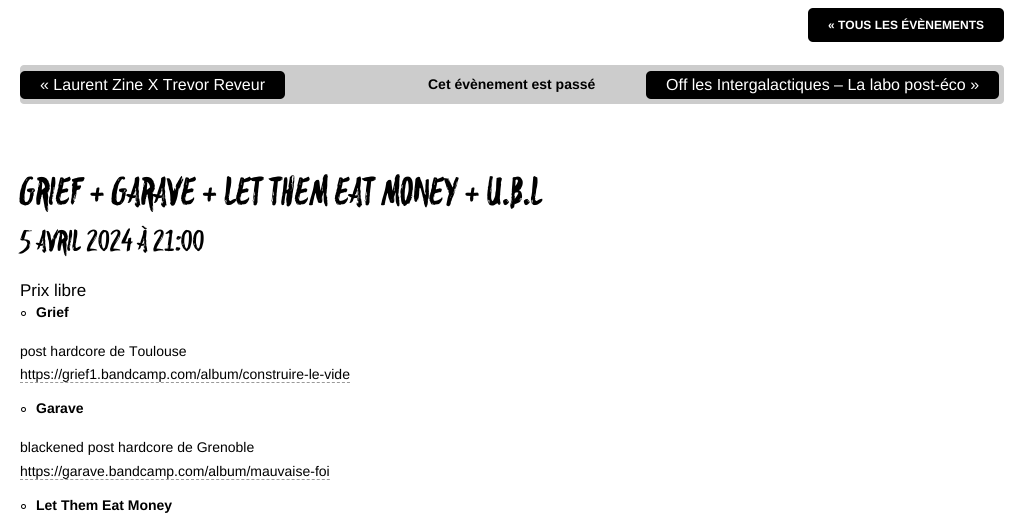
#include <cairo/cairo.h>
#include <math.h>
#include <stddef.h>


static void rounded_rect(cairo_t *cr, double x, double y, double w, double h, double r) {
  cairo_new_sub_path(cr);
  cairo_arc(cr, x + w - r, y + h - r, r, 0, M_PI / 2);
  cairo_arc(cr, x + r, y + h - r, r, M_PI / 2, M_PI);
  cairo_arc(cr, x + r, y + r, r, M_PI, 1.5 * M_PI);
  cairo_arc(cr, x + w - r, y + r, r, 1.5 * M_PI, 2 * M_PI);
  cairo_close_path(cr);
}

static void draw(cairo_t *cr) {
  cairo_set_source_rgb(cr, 1, 1, 1);
  cairo_paint(cr);
  cairo_set_source_rgb(cr, 0, 0, 0);
  rounded_rect(cr, 808, 8, 196, 34, 5);
  cairo_fill(cr);
  cairo_set_source_rgb(cr, 204 / 255.0, 204 / 255.0, 204 / 255.0);
  rounded_rect(cr, 20, 65, 984, 39, 4);
  cairo_fill(cr);
  cairo_set_source_rgb(cr, 0, 0, 0);
  rounded_rect(cr, 20, 71, 265, 28, 5);
  cairo_fill(cr);
  rounded_rect(cr, 646, 71, 353, 28, 5);
  cairo_fill(cr);
  cairo_arc(cr, 23.5, 313.5, 2, 0, 2 * M_PI);
  cairo_set_line_width(cr, 1);
  cairo_stroke(cr);
  cairo_new_path(cr);
  cairo_move_to(cr, 20, 382.5);
  cairo_line_to(cr, 350, 382.5);
  cairo_set_source_rgb(cr, 153 / 255.0, 153 / 255.0, 153 / 255.0);
  cairo_set_dash(cr, (double[]){3, 2.03}, 2, 0);
  cairo_stroke(cr);
  cairo_arc(cr, 23.5, 409.5, 2, 0, 2 * M_PI);
  cairo_set_source_rgb(cr, 0, 0, 0);
  cairo_set_dash(cr, NULL, 0, 0);
  cairo_stroke(cr);
  cairo_new_path(cr);
  cairo_move_to(cr, 20, 479.5);
  cairo_line_to(cr, 330, 479.5);
  cairo_set_source_rgb(cr, 153 / 255.0, 153 / 255.0, 153 / 255.0);
  cairo_set_dash(cr, (double[]){3, 2.03}, 2, 0);
  cairo_stroke(cr);
  cairo_arc(cr, 23.5, 506.5, 2, 0, 2 * M_PI);
  cairo_set_source_rgb(cr, 0, 0, 0);
  cairo_set_dash(cr, NULL, 0, 0);
  cairo_stroke(cr);
  cairo_select_font_face(cr, "Liberation Sans", CAIRO_FONT_SLANT_NORMAL, CAIRO_FONT_WEIGHT_BOLD);
  cairo_set_font_size(cr, 12);
  cairo_set_source_rgb(cr, 1, 1, 1);
  cairo_move_to(cr, 828, 29);
  cairo_show_text(cr, "« TOUS LES ÉVÈNEMENTS");
  cairo_select_font_face(cr, "Liberation Sans", CAIRO_FONT_SLANT_NORMAL, CAIRO_FONT_WEIGHT_NORMAL);
  cairo_set_font_size(cr, 16);
  cairo_move_to(cr, 40, 90);
  cairo_show_text(cr, "« Laurent Zine X Trevor Reveur");
  cairo_move_to(cr, 666, 90);
  cairo_show_text(cr, "Off les Intergalactiques – La labo post-éco »");
  cairo_select_font_face(cr, "Liberation Sans", CAIRO_FONT_SLANT_NORMAL, CAIRO_FONT_WEIGHT_BOLD);
  cairo_set_font_size(cr, 14);
  cairo_set_source_rgb(cr, 0, 0, 0);
  cairo_move_to(cr, 428, 89);
  cairo_show_text(cr, "Cet évènement est passé");
  cairo_select_font_face(cr, "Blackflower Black", CAIRO_FONT_SLANT_NORMAL, CAIRO_FONT_WEIGHT_NORMAL);
  cairo_set_font_size(cr, 40);
  cairo_move_to(cr, 20, 205);
  cairo_show_text(cr, "GRIEF + GARAVE + LET THEM EAT MONEY + U.B.L");
  cairo_set_font_size(cr, 30);
  cairo_move_to(cr, 20, 251);
  cairo_show_text(cr, "5 AVRIL 2024 À 21:00");
  cairo_select_font_face(cr, "Liberation Sans", CAIRO_FONT_SLANT_NORMAL, CAIRO_FONT_WEIGHT_NORMAL);
  cairo_set_font_size(cr, 17);
  cairo_move_to(cr, 20, 296);
  cairo_show_text(cr, "Prix libre");
  cairo_select_font_face(cr, "Liberation Sans", CAIRO_FONT_SLANT_NORMAL, CAIRO_FONT_WEIGHT_BOLD);
  cairo_set_font_size(cr, 14);
  cairo_move_to(cr, 36, 317);
  cairo_show_text(cr, "Grief");
  cairo_select_font_face(cr, "Liberation Sans", CAIRO_FONT_SLANT_NORMAL, CAIRO_FONT_WEIGHT_NORMAL);
  cairo_move_to(cr, 20, 356);
  cairo_show_text(cr, "post hardcore de Toulouse");
  cairo_move_to(cr, 20, 379);
  cairo_show_text(cr, "https://grief1.bandcamp.com/album/construire-le-vide");
  cairo_select_font_face(cr, "Liberation Sans", CAIRO_FONT_SLANT_NORMAL, CAIRO_FONT_WEIGHT_BOLD);
  cairo_move_to(cr, 36, 413);
  cairo_show_text(cr, "Garave");
  cairo_select_font_face(cr, "Liberation Sans", CAIRO_FONT_SLANT_NORMAL, CAIRO_FONT_WEIGHT_NORMAL);
  cairo_move_to(cr, 20, 452);
  cairo_show_text(cr, "blackened post hardcore de Grenoble");
  cairo_move_to(cr, 20, 476);
  cairo_show_text(cr, "https://garave.bandcamp.com/album/mauvaise-foi");
  cairo_select_font_face(cr, "Liberation Sans", CAIRO_FONT_SLANT_NORMAL, CAIRO_FONT_WEIGHT_BOLD);
  cairo_move_to(cr, 36, 510);
  cairo_show_text(cr, "Let Them Eat Money");
}

int main(void) {
  cairo_surface_t *surface = cairo_image_surface_create(CAIRO_FORMAT_RGB24, 1024, 531);
  cairo_t *cr = cairo_create(surface);
  cairo_font_options_t *options = cairo_font_options_create();
  cairo_font_options_set_hint_metrics(options, CAIRO_HINT_METRICS_OFF);
  cairo_font_options_set_hint_style(options, CAIRO_HINT_STYLE_NONE);
  cairo_set_font_options(cr, options);
  cairo_set_miter_limit(cr, 4);
  draw(cr);
  cairo_surface_write_to_png(surface, "out.png");
  cairo_font_options_destroy(options);
  cairo_destroy(cr);
  cairo_surface_destroy(surface);
  return 0;
}
